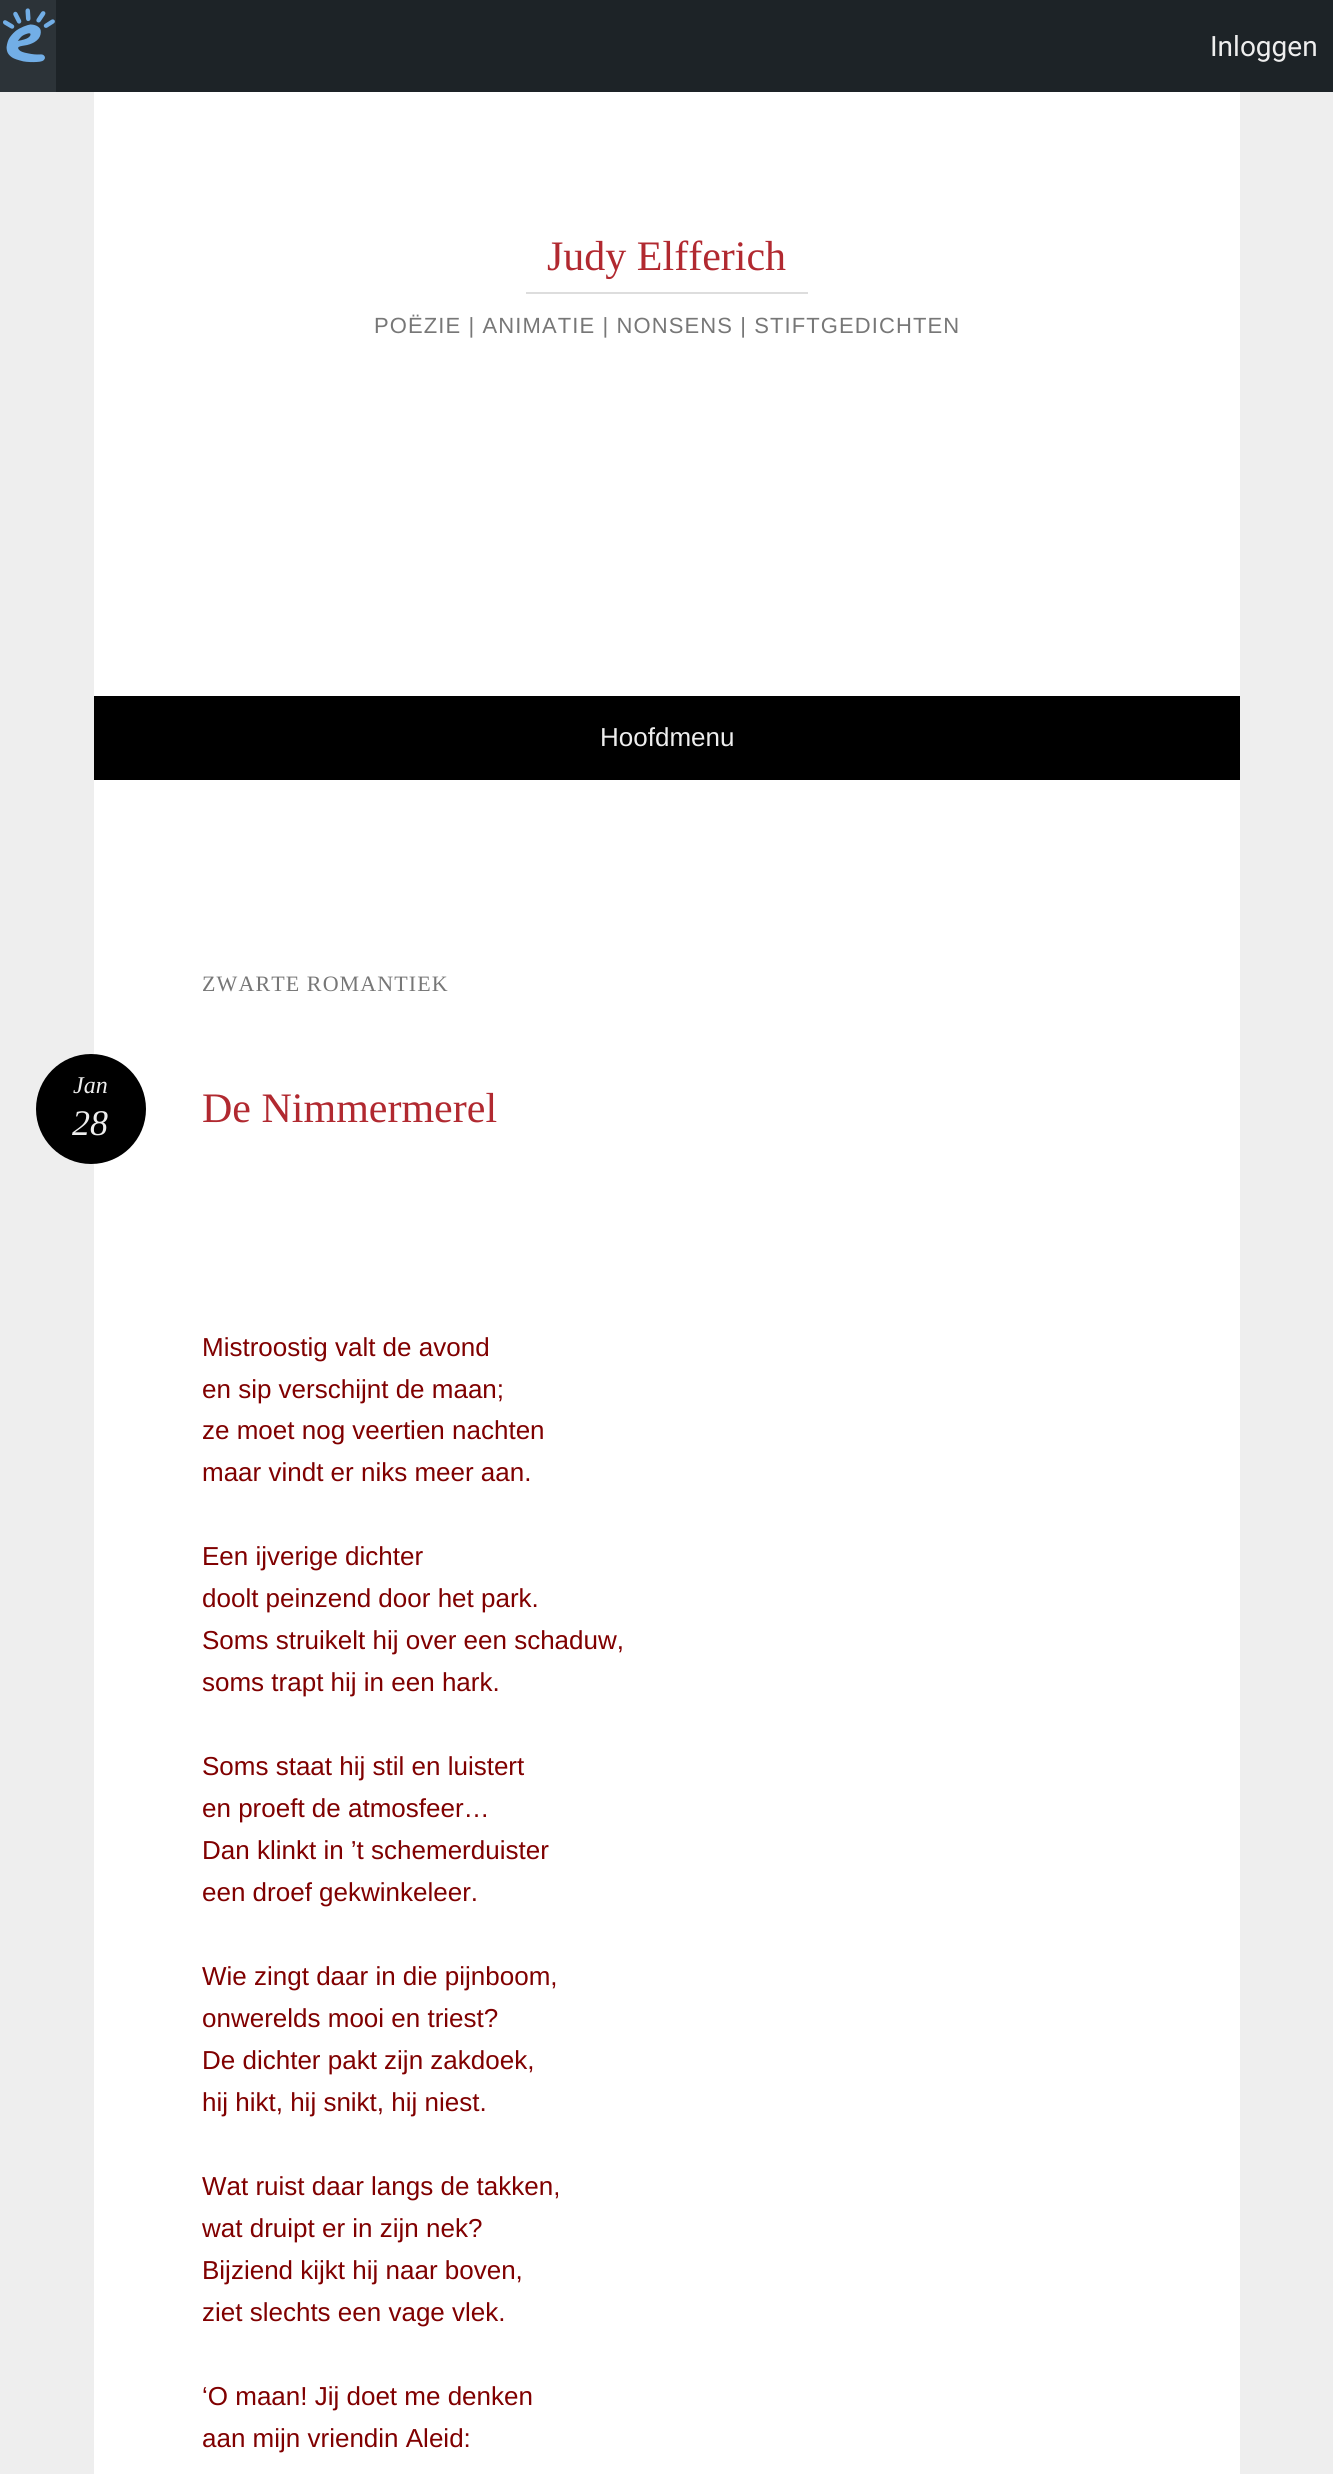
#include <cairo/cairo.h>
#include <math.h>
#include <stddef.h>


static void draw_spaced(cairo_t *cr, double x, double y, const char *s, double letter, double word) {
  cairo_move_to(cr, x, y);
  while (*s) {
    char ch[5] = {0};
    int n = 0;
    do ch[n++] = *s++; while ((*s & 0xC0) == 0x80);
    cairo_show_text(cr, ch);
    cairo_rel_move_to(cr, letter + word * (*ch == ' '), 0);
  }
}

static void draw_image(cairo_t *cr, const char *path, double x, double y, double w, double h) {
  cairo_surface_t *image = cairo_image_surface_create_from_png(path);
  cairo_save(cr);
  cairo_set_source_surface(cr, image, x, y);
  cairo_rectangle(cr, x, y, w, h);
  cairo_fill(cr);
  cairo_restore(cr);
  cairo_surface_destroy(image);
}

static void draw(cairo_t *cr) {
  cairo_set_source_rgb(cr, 238 / 255.0, 238 / 255.0, 238 / 255.0);
  cairo_paint(cr);
  cairo_set_source_rgb(cr, 29 / 255.0, 35 / 255.0, 39 / 255.0);
  cairo_rectangle(cr, 56, 0, 1277, 92);
  cairo_fill(cr);
  cairo_set_source_rgb(cr, 44 / 255.0, 51 / 255.0, 56 / 255.0);
  cairo_rectangle(cr, 0, 0, 56, 92);
  cairo_fill(cr);
  draw_image(cr, "images/1.png", 3, 8, 52, 55);
  cairo_set_source_rgb(cr, 1, 1, 1);
  cairo_rectangle(cr, 94, 92, 1146, 2382);
  cairo_fill(cr);
  cairo_set_source_rgb(cr, 221 / 255.0, 221 / 255.0, 221 / 255.0);
  cairo_rectangle(cr, 526, 292, 282, 2);
  cairo_fill(cr);
  cairo_set_source_rgb(cr, 0, 0, 0);
  cairo_rectangle(cr, 94, 696, 1146, 84);
  cairo_fill(cr);
  cairo_arc(cr, 91, 1109, 55, 0, 2 * M_PI);
  cairo_fill(cr);
  cairo_select_font_face(cr, "Roboto", CAIRO_FONT_SLANT_NORMAL, CAIRO_FONT_WEIGHT_NORMAL);
  cairo_set_font_size(cr, 28);
  cairo_set_source_rgb(cr, 238 / 255.0, 238 / 255.0, 238 / 255.0);
  cairo_move_to(cr, 1210, 56);
  cairo_show_text(cr, "Inloggen");
  cairo_select_font_face(cr, "Liberation Serif", CAIRO_FONT_SLANT_NORMAL, CAIRO_FONT_WEIGHT_NORMAL);
  cairo_set_font_size(cr, 42);
  cairo_set_source_rgb(cr, 177 / 255.0, 41 / 255.0, 48 / 255.0);
  cairo_move_to(cr, 547, 270);
  cairo_show_text(cr, "Judy Elfferich");
  cairo_select_font_face(cr, "Liberation Sans", CAIRO_FONT_SLANT_NORMAL, CAIRO_FONT_WEIGHT_NORMAL);
  cairo_set_font_size(cr, 22);
  cairo_set_source_rgb(cr, 119 / 255.0, 119 / 255.0, 119 / 255.0);
  draw_spaced(cr, 374, 333, "POËZIE | ANIMATIE | NONSENS | STIFTGEDICHTEN", 1.1, 0);
  cairo_set_font_size(cr, 26);
  cairo_set_source_rgb(cr, 238 / 255.0, 238 / 255.0, 238 / 255.0);
  cairo_move_to(cr, 600, 746);
  cairo_show_text(cr, "Hoofdmenu");
  cairo_select_font_face(cr, "Liberation Serif", CAIRO_FONT_SLANT_NORMAL, CAIRO_FONT_WEIGHT_NORMAL);
  cairo_set_font_size(cr, 22);
  cairo_set_source_rgb(cr, 119 / 255.0, 119 / 255.0, 119 / 255.0);
  draw_spaced(cr, 202, 991, "ZWARTE ROMANTIEK", 1.1, 0);
  cairo_select_font_face(cr, "Liberation Serif", CAIRO_FONT_SLANT_ITALIC, CAIRO_FONT_WEIGHT_NORMAL);
  cairo_set_font_size(cr, 24);
  cairo_set_source_rgb(cr, 238 / 255.0, 238 / 255.0, 238 / 255.0);
  cairo_move_to(cr, 73, 1093);
  cairo_show_text(cr, "Jan");
  cairo_set_font_size(cr, 36);
  cairo_move_to(cr, 72, 1135);
  cairo_show_text(cr, "28");
  cairo_select_font_face(cr, "Liberation Serif", CAIRO_FONT_SLANT_NORMAL, CAIRO_FONT_WEIGHT_NORMAL);
  cairo_set_font_size(cr, 42);
  cairo_set_source_rgb(cr, 177 / 255.0, 41 / 255.0, 48 / 255.0);
  cairo_move_to(cr, 202, 1122);
  cairo_show_text(cr, "De Nimmermerel");
  cairo_select_font_face(cr, "Liberation Sans", CAIRO_FONT_SLANT_NORMAL, CAIRO_FONT_WEIGHT_NORMAL);
  cairo_set_font_size(cr, 26);
  cairo_set_source_rgb(cr, 128 / 255.0, 0, 0);
  cairo_move_to(cr, 202, 1356);
  cairo_show_text(cr, "Mistroostig valt de avond");
  cairo_move_to(cr, 202, 1398);
  cairo_show_text(cr, "en sip verschijnt de maan;");
  cairo_move_to(cr, 202, 1439);
  cairo_show_text(cr, "ze moet nog veertien nachten");
  cairo_move_to(cr, 202, 1481);
  cairo_show_text(cr, "maar vindt er niks meer aan.");
  cairo_move_to(cr, 202, 1565);
  cairo_show_text(cr, "Een ijverige dichter");
  cairo_move_to(cr, 202, 1607);
  cairo_show_text(cr, "doolt peinzend door het park.");
  cairo_move_to(cr, 202, 1649);
  cairo_show_text(cr, "Soms struikelt hij over een schaduw,");
  cairo_move_to(cr, 202, 1691);
  cairo_show_text(cr, "soms trapt hij in een hark.");
  cairo_move_to(cr, 202, 1775);
  cairo_show_text(cr, "Soms staat hij stil en luistert");
  cairo_move_to(cr, 202, 1817);
  cairo_show_text(cr, "en proeft de atmosfeer…");
  cairo_move_to(cr, 202, 1859);
  cairo_show_text(cr, "Dan klinkt in ’t schemerduister");
  cairo_move_to(cr, 202, 1901);
  cairo_show_text(cr, "een droef gekwinkeleer.");
  cairo_move_to(cr, 202, 1985);
  cairo_show_text(cr, "Wie zingt daar in die pijnboom,");
  cairo_move_to(cr, 202, 2027);
  cairo_show_text(cr, "onwerelds mooi en triest?");
  cairo_move_to(cr, 202, 2069);
  cairo_show_text(cr, "De dichter pakt zijn zakdoek,");
  cairo_move_to(cr, 202, 2111);
  cairo_show_text(cr, "hij hikt, hij snikt, hij niest.");
  cairo_move_to(cr, 202, 2195);
  cairo_show_text(cr, "Wat ruist daar langs de takken,");
  cairo_move_to(cr, 202, 2237);
  cairo_show_text(cr, "wat druipt er in zijn nek?");
  cairo_move_to(cr, 202, 2279);
  cairo_show_text(cr, "Bijziend kijkt hij naar boven,");
  cairo_move_to(cr, 202, 2321);
  cairo_show_text(cr, "ziet slechts een vage vlek.");
  cairo_move_to(cr, 202, 2405);
  cairo_show_text(cr, "‘O maan! Jij doet me denken");
  cairo_move_to(cr, 202, 2447);
  cairo_show_text(cr, "aan mijn vriendin Aleid:");
}

int main(void) {
  cairo_surface_t *surface = cairo_image_surface_create(CAIRO_FORMAT_RGB24, 1333, 2474);
  cairo_t *cr = cairo_create(surface);
  cairo_font_options_t *options = cairo_font_options_create();
  cairo_font_options_set_hint_metrics(options, CAIRO_HINT_METRICS_OFF);
  cairo_font_options_set_hint_style(options, CAIRO_HINT_STYLE_NONE);
  cairo_set_font_options(cr, options);
  cairo_set_miter_limit(cr, 4);
  draw(cr);
  cairo_surface_write_to_png(surface, "out.png");
  cairo_font_options_destroy(options);
  cairo_destroy(cr);
  cairo_surface_destroy(surface);
  return 0;
}
